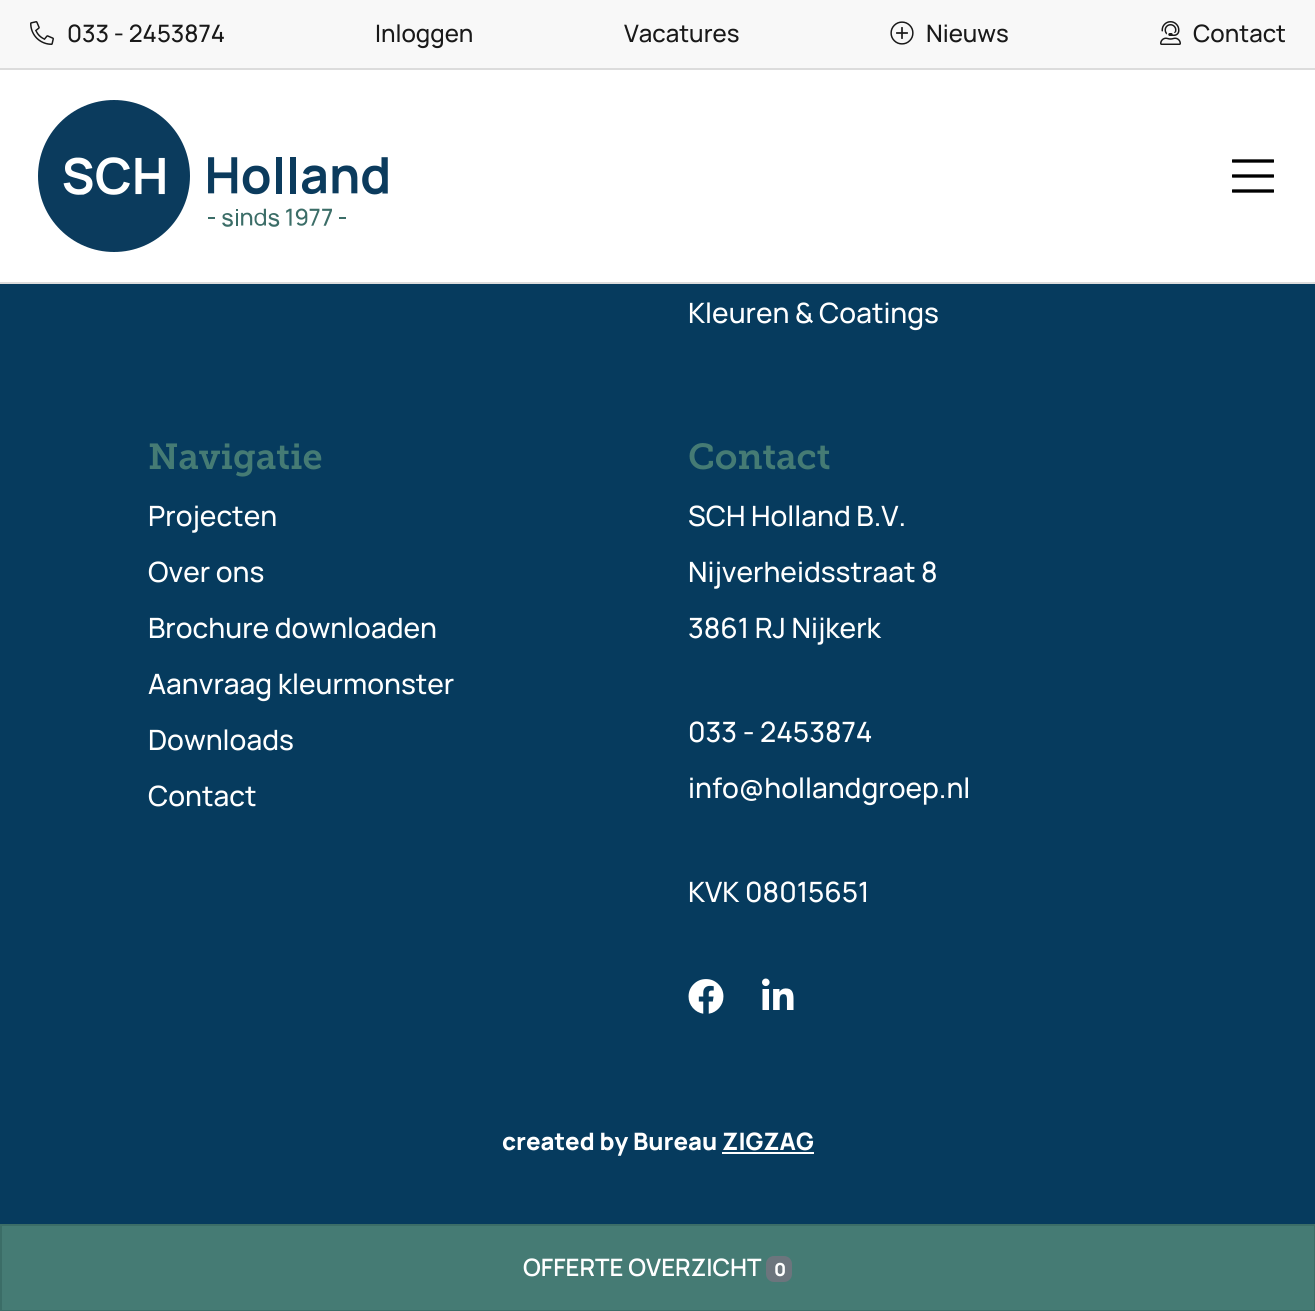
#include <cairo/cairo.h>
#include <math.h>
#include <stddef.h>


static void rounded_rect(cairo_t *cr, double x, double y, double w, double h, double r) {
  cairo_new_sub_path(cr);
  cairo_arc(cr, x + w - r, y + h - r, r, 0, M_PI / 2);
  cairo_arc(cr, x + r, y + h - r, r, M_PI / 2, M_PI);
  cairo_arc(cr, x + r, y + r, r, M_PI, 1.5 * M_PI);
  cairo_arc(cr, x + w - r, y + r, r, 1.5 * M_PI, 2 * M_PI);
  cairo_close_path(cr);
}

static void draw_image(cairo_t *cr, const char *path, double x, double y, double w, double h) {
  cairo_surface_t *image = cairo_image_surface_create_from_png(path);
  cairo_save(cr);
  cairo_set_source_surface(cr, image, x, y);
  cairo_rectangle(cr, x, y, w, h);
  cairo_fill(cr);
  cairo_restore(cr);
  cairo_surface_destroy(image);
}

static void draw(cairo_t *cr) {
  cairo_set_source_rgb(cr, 6 / 255.0, 59 / 255.0, 94 / 255.0);
  cairo_paint(cr);
  cairo_set_source_rgb(cr, 248 / 255.0, 248 / 255.0, 248 / 255.0);
  cairo_rectangle(cr, 0, 0, 1315, 68);
  cairo_fill(cr);
  cairo_set_source_rgb(cr, 220 / 255.0, 220 / 255.0, 220 / 255.0);
  cairo_rectangle(cr, 0, 68, 1315, 2);
  cairo_fill(cr);
  draw_image(cr, "images/1.png", 30, 21, 24, 24);
  draw_image(cr, "images/2.png", 890, 21, 24, 24);
  draw_image(cr, "images/3.png", 1160, 21, 21, 24);
  cairo_set_source_rgb(cr, 1, 1, 1);
  cairo_rectangle(cr, 0, 70, 1315, 212);
  cairo_fill(cr);
  cairo_set_source_rgb(cr, 220 / 255.0, 220 / 255.0, 220 / 255.0);
  cairo_rectangle(cr, 0, 282, 1315, 2);
  cairo_fill(cr);
  draw_image(cr, "images/4.png", 38, 100, 350, 152);
  draw_image(cr, "images/5.png", 1232, 159, 42, 34);
  draw_image(cr, "images/6.png", 688, 979, 36, 35);
  draw_image(cr, "images/7.png", 762, 978, 32, 32);
  cairo_set_source_rgb(cr, 1, 1, 1);
  cairo_rectangle(cr, 722, 1152, 92, 2);
  cairo_fill(cr);
  cairo_set_source_rgb(cr, 69 / 255.0, 123 / 255.0, 116 / 255.0);
  cairo_rectangle(cr, 1, 1225, 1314, 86);
  cairo_fill_preserve(cr);
  cairo_set_source_rgb(cr, 59 / 255.0, 109 / 255.0, 103 / 255.0);
  cairo_stroke(cr);
  cairo_set_source_rgb(cr, 108 / 255.0, 117 / 255.0, 125 / 255.0);
  rounded_rect(cr, 766, 1256, 26, 26, 8);
  cairo_fill(cr);
  cairo_select_font_face(cr, "Manrope Medium", CAIRO_FONT_SLANT_NORMAL, CAIRO_FONT_WEIGHT_NORMAL);
  cairo_set_font_size(cr, 24);
  cairo_set_source_rgb(cr, 25 / 255.0, 25 / 255.0, 25 / 255.0);
  cairo_move_to(cr, 67, 42);
  cairo_show_text(cr, "033 - 2453874");
  cairo_move_to(cr, 375, 42);
  cairo_show_text(cr, "Inloggen");
  cairo_move_to(cr, 624, 42);
  cairo_show_text(cr, "Vacatures");
  cairo_move_to(cr, 926, 42);
  cairo_show_text(cr, "Nieuws");
  cairo_move_to(cr, 1193, 42);
  cairo_show_text(cr, "Contact");
  cairo_set_font_size(cr, 28);
  cairo_set_source_rgb(cr, 1, 1, 1);
  cairo_move_to(cr, 688, 323);
  cairo_show_text(cr, "Kleuren & Coatings");
  cairo_select_font_face(cr, "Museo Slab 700 SemiBold", CAIRO_FONT_SLANT_NORMAL, CAIRO_FONT_WEIGHT_NORMAL);
  cairo_set_font_size(cr, 36);
  cairo_set_source_rgb(cr, 69 / 255.0, 123 / 255.0, 116 / 255.0);
  cairo_move_to(cr, 148, 469);
  cairo_show_text(cr, "Navigatie");
  cairo_select_font_face(cr, "Manrope Medium", CAIRO_FONT_SLANT_NORMAL, CAIRO_FONT_WEIGHT_NORMAL);
  cairo_set_font_size(cr, 28);
  cairo_set_source_rgb(cr, 1, 1, 1);
  cairo_move_to(cr, 148, 526);
  cairo_show_text(cr, "Projecten");
  cairo_move_to(cr, 148, 582);
  cairo_show_text(cr, "Over ons");
  cairo_move_to(cr, 148, 638);
  cairo_show_text(cr, "Brochure downloaden");
  cairo_move_to(cr, 148, 694);
  cairo_show_text(cr, "Aanvraag kleurmonster");
  cairo_move_to(cr, 148, 750);
  cairo_show_text(cr, "Downloads");
  cairo_move_to(cr, 148, 806);
  cairo_show_text(cr, "Contact");
  cairo_select_font_face(cr, "Museo Slab 700 SemiBold", CAIRO_FONT_SLANT_NORMAL, CAIRO_FONT_WEIGHT_NORMAL);
  cairo_set_font_size(cr, 36);
  cairo_set_source_rgb(cr, 69 / 255.0, 123 / 255.0, 116 / 255.0);
  cairo_move_to(cr, 688, 469);
  cairo_show_text(cr, "Contact");
  cairo_select_font_face(cr, "Manrope Medium", CAIRO_FONT_SLANT_NORMAL, CAIRO_FONT_WEIGHT_NORMAL);
  cairo_set_font_size(cr, 28);
  cairo_set_source_rgb(cr, 1, 1, 1);
  cairo_move_to(cr, 688, 526);
  cairo_show_text(cr, "SCH Holland B.V.");
  cairo_move_to(cr, 688, 582);
  cairo_show_text(cr, "Nijverheidsstraat 8");
  cairo_move_to(cr, 688, 638);
  cairo_show_text(cr, "3861 RJ Nijkerk");
  cairo_move_to(cr, 688, 742);
  cairo_show_text(cr, "033 - 2453874");
  cairo_move_to(cr, 688, 798);
  cairo_show_text(cr, "info@hollandgroep.nl");
  cairo_move_to(cr, 688, 902);
  cairo_show_text(cr, "KVK 08015651");
  cairo_select_font_face(cr, "Manrope ExtraBold", CAIRO_FONT_SLANT_NORMAL, CAIRO_FONT_WEIGHT_NORMAL);
  cairo_set_font_size(cr, 24);
  cairo_move_to(cr, 502, 1150);
  cairo_show_text(cr, "created by Bureau ZIGZAG");
  cairo_select_font_face(cr, "Manrope SemiBold", CAIRO_FONT_SLANT_NORMAL, CAIRO_FONT_WEIGHT_NORMAL);
  cairo_move_to(cr, 523, 1276);
  cairo_show_text(cr, "OFFERTE OVERZICHT");
  cairo_select_font_face(cr, "Manrope ExtraBold", CAIRO_FONT_SLANT_NORMAL, CAIRO_FONT_WEIGHT_NORMAL);
  cairo_set_font_size(cr, 18);
  cairo_move_to(cr, 774, 1276);
  cairo_show_text(cr, "0");
}

int main(void) {
  cairo_surface_t *surface = cairo_image_surface_create(CAIRO_FORMAT_RGB24, 1315, 1311);
  cairo_t *cr = cairo_create(surface);
  cairo_font_options_t *options = cairo_font_options_create();
  cairo_font_options_set_hint_metrics(options, CAIRO_HINT_METRICS_OFF);
  cairo_font_options_set_hint_style(options, CAIRO_HINT_STYLE_NONE);
  cairo_set_font_options(cr, options);
  cairo_set_miter_limit(cr, 4);
  draw(cr);
  cairo_surface_write_to_png(surface, "out.png");
  cairo_font_options_destroy(options);
  cairo_destroy(cr);
  cairo_surface_destroy(surface);
  return 0;
}
